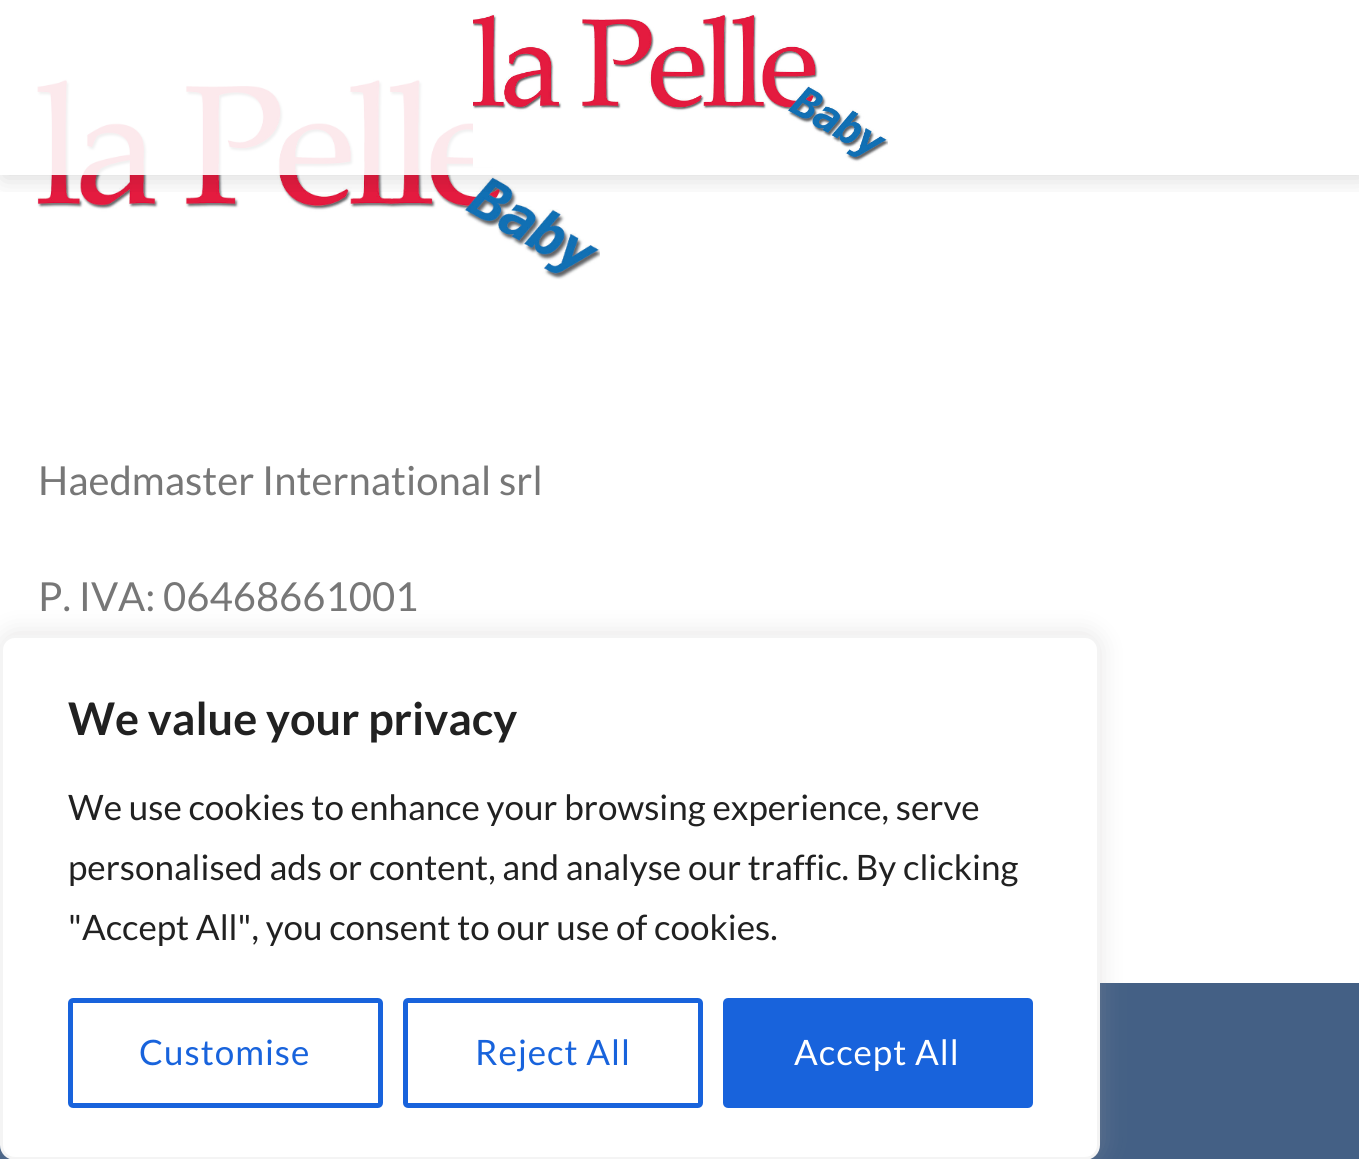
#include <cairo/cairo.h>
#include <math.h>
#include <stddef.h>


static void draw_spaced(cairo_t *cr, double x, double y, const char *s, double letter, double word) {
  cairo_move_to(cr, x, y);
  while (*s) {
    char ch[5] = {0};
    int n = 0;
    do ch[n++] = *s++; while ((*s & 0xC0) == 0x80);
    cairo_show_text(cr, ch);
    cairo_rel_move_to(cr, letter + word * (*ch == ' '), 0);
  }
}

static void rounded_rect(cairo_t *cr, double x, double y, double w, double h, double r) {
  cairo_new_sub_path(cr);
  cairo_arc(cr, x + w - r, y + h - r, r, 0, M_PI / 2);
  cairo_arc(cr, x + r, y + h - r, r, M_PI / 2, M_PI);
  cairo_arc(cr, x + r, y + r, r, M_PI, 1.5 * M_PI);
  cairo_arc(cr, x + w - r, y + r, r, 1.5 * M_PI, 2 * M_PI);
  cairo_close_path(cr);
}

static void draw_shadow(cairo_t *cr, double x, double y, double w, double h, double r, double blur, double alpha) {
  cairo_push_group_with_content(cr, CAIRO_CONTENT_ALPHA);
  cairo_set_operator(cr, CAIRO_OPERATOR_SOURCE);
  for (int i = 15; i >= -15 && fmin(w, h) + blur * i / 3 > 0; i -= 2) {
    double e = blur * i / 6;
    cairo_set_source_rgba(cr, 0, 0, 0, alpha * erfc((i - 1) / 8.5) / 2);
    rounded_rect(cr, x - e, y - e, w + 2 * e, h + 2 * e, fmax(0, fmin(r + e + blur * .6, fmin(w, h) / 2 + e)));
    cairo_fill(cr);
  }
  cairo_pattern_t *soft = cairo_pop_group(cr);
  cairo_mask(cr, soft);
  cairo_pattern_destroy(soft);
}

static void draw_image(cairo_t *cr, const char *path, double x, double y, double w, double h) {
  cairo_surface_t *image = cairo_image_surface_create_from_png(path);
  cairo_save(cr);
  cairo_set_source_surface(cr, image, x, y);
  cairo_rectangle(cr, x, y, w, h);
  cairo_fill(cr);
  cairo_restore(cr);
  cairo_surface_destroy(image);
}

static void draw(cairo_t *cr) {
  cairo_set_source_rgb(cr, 1, 1, 1);
  cairo_paint(cr);
  draw_image(cr, "images/2.png", 37, 79, 563, 201);
  cairo_save(cr);
  cairo_rectangle(cr, 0, 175, 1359, 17);
  cairo_clip(cr);
  cairo_set_source_rgb(cr, 0, 0, 0);
  draw_shadow(cr, 3, 3, 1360, 175, 0, 12.5, 0.15);
  cairo_restore(cr);
  cairo_set_source_rgba(cr, 1, 1, 1, 0.9);
  cairo_rectangle(cr, 37, 79, 469, 96);
  cairo_fill(cr);
  draw_image(cr, "images/1.png", 473, 14, 415, 153);
  cairo_set_source_rgb(cr, 68 / 255.0, 96 / 255.0, 133 / 255.0);
  cairo_rectangle(cr, 0, 983, 1359, 176);
  cairo_fill(cr);
  cairo_set_source_rgb(cr, 172 / 255.0, 171 / 255.0, 171 / 255.0);
  draw_shadow(cr, 0, 633, 1100, 525, 15, 12.5, 0.3);
  cairo_set_source_rgb(cr, 1, 1, 1);
  rounded_rect(cr, 1.5, 636.5, 1097, 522, 13.5);
  cairo_fill_preserve(cr);
  cairo_set_source_rgb(cr, 244 / 255.0, 244 / 255.0, 244 / 255.0);
  cairo_set_line_width(cr, 3);
  cairo_stroke(cr);
  rounded_rect(cr, 70.5, 1000.5, 310, 105, 2.5);
  cairo_set_source_rgb(cr, 24 / 255.0, 99 / 255.0, 220 / 255.0);
  cairo_set_line_width(cr, 5);
  cairo_stroke(cr);
  rounded_rect(cr, 405.5, 1000.5, 295, 105, 2.5);
  cairo_stroke(cr);
  rounded_rect(cr, 725.5, 1000.5, 305, 105, 2.5);
  cairo_fill_preserve(cr);
  cairo_stroke(cr);
  cairo_select_font_face(cr, "Lato", CAIRO_FONT_SLANT_NORMAL, CAIRO_FONT_WEIGHT_NORMAL);
  cairo_set_font_size(cr, 40);
  cairo_set_source_rgb(cr, 119 / 255.0, 119 / 255.0, 119 / 255.0);
  cairo_move_to(cr, 38, 495);
  cairo_show_text(cr, "Haedmaster International srl");
  cairo_move_to(cr, 38, 611);
  cairo_show_text(cr, "P. IVA: 06468661001");
  cairo_select_font_face(cr, "Lato", CAIRO_FONT_SLANT_NORMAL, CAIRO_FONT_WEIGHT_BOLD);
  cairo_set_font_size(cr, 45);
  cairo_set_source_rgb(cr, 33 / 255.0, 33 / 255.0, 33 / 255.0);
  cairo_move_to(cr, 68, 735);
  cairo_show_text(cr, "We value your privacy");
  cairo_select_font_face(cr, "Lato", CAIRO_FONT_SLANT_NORMAL, CAIRO_FONT_WEIGHT_NORMAL);
  cairo_set_font_size(cr, 35);
  cairo_move_to(cr, 68, 820);
  cairo_show_text(cr, "We use cookies to enhance your browsing experience, serve");
  cairo_move_to(cr, 68, 880);
  cairo_show_text(cr, "personalised ads or content, and analyse our traffic. By clicking");
  cairo_move_to(cr, 68, 940);
  cairo_show_text(cr, "\"Accept All\", you consent to our use of cookies.");
  cairo_set_source_rgb(cr, 24 / 255.0, 99 / 255.0, 220 / 255.0);
  draw_spaced(cr, 139, 1065, "Customise", 1, 0);
  draw_spaced(cr, 475, 1065, "Reject All", 1, 0);
  cairo_set_source_rgb(cr, 1, 1, 1);
  draw_spaced(cr, 794, 1065, "Accept All", 1, 0);
}

int main(void) {
  cairo_surface_t *surface = cairo_image_surface_create(CAIRO_FORMAT_RGB24, 1359, 1159);
  cairo_t *cr = cairo_create(surface);
  cairo_font_options_t *options = cairo_font_options_create();
  cairo_font_options_set_hint_metrics(options, CAIRO_HINT_METRICS_OFF);
  cairo_font_options_set_hint_style(options, CAIRO_HINT_STYLE_NONE);
  cairo_set_font_options(cr, options);
  cairo_set_miter_limit(cr, 4);
  draw(cr);
  cairo_surface_write_to_png(surface, "out.png");
  cairo_font_options_destroy(options);
  cairo_destroy(cr);
  cairo_surface_destroy(surface);
  return 0;
}
